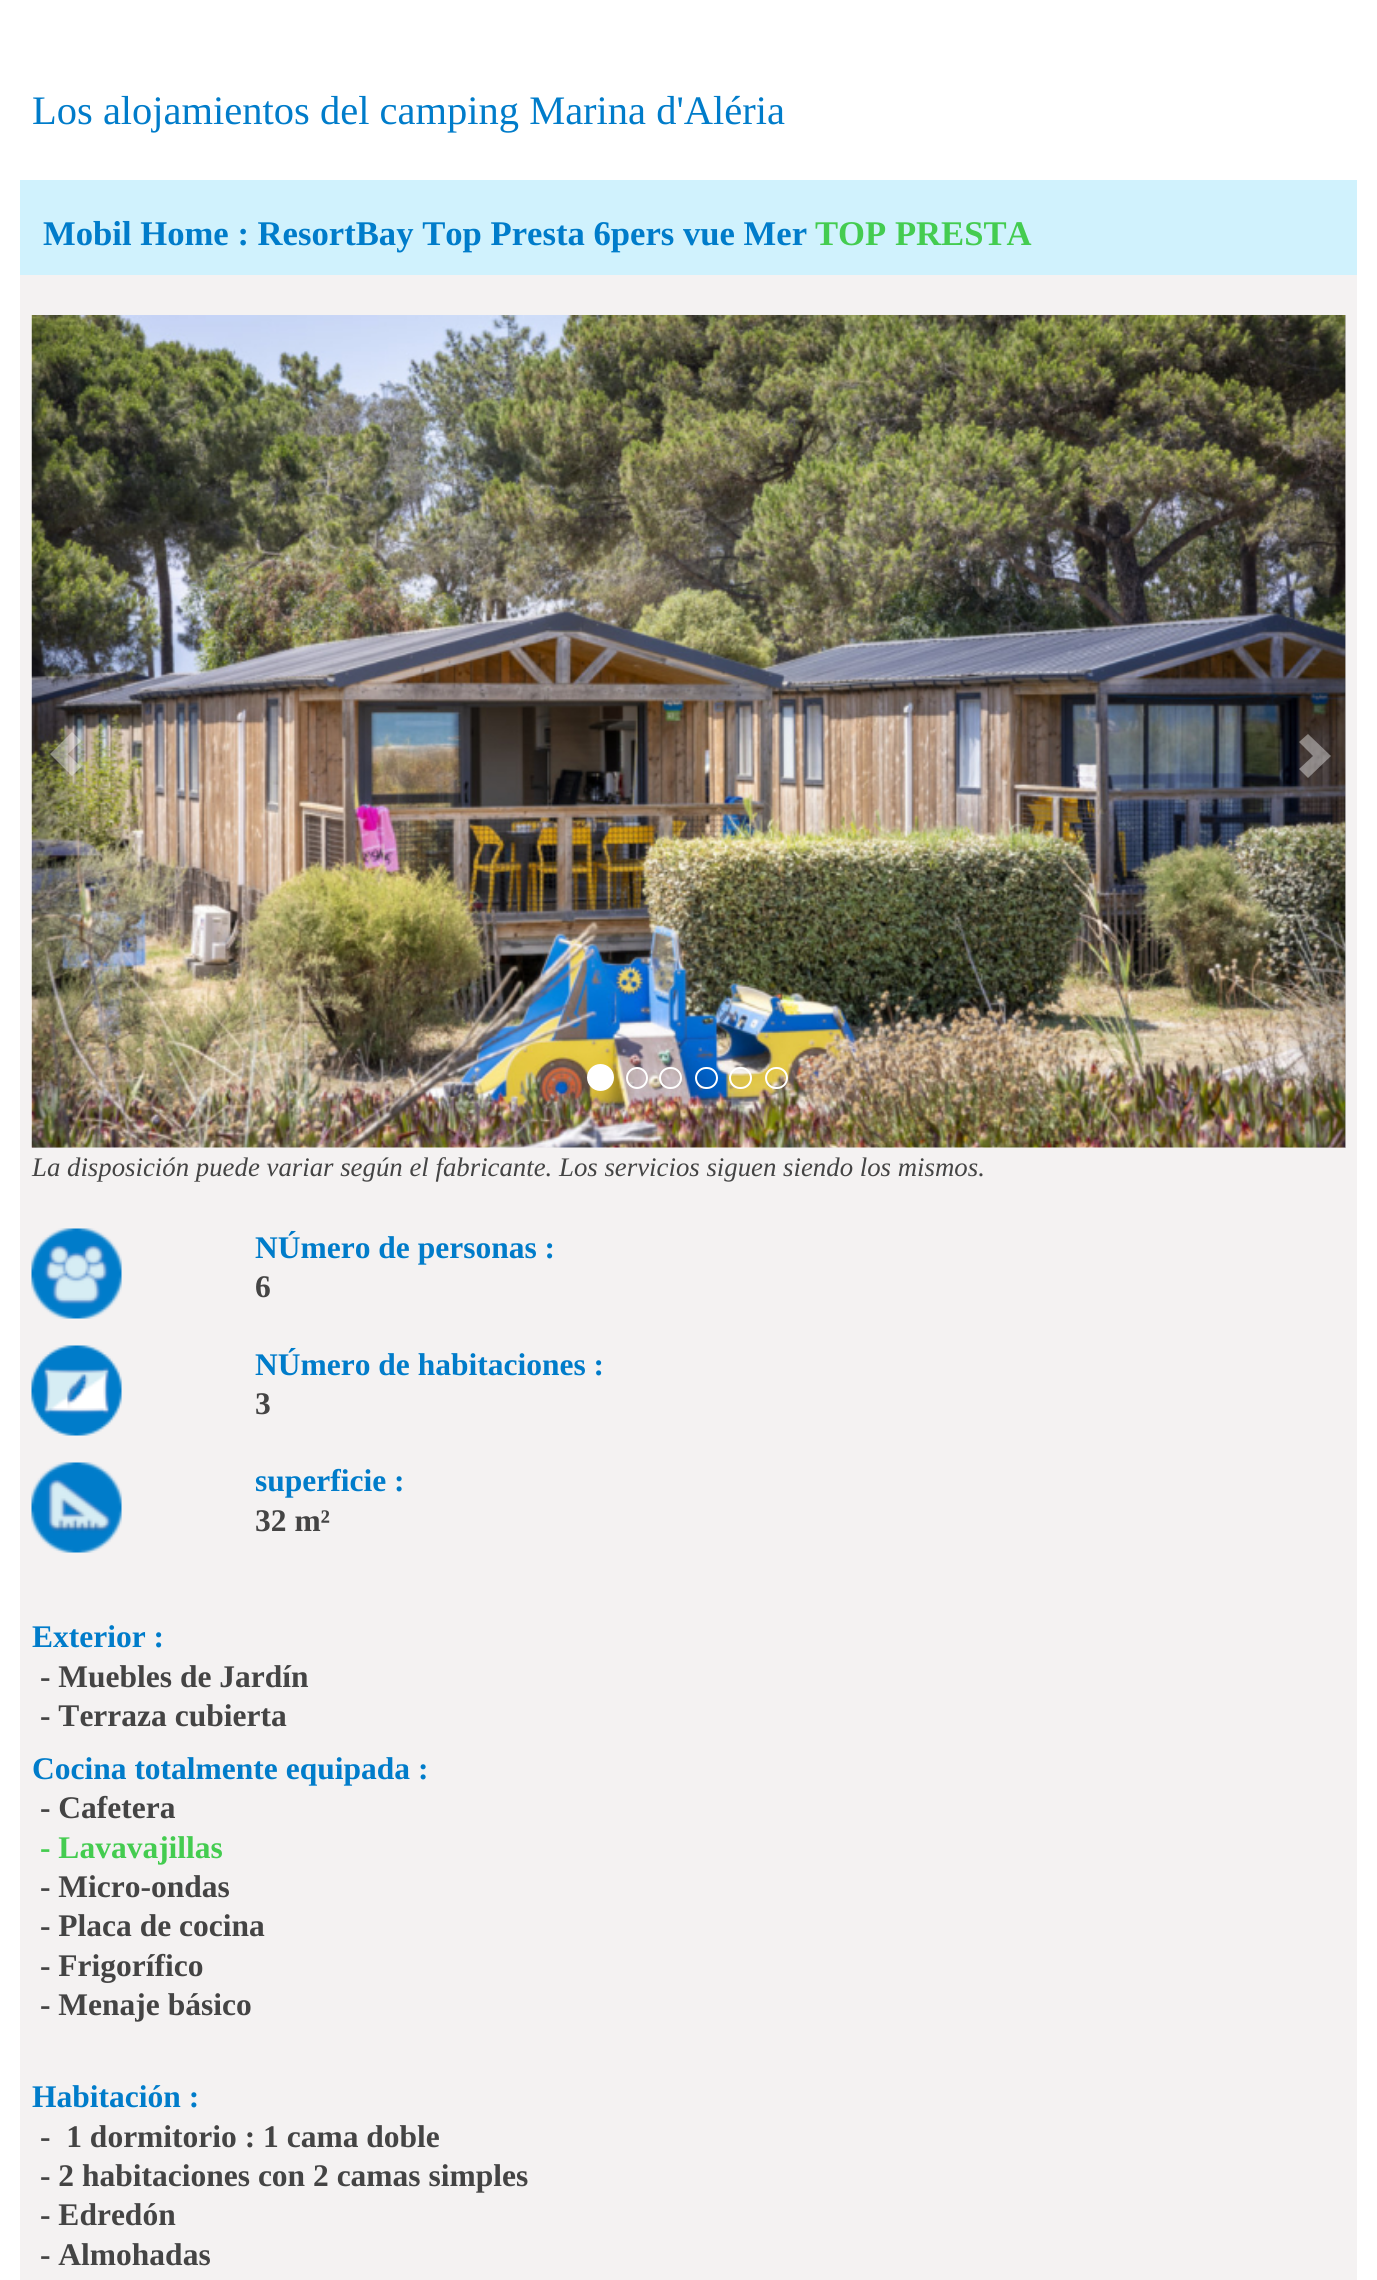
#include <cairo/cairo.h>
#include <math.h>
#include <stddef.h>


static void rounded_rect(cairo_t *cr, double x, double y, double w, double h, double r) {
  cairo_new_sub_path(cr);
  cairo_arc(cr, x + w - r, y + h - r, r, 0, M_PI / 2);
  cairo_arc(cr, x + r, y + h - r, r, M_PI / 2, M_PI);
  cairo_arc(cr, x + r, y + r, r, M_PI, 1.5 * M_PI);
  cairo_arc(cr, x + w - r, y + r, r, 1.5 * M_PI, 2 * M_PI);
  cairo_close_path(cr);
}

static void draw_image(cairo_t *cr, const char *path, double x, double y, double w, double h) {
  cairo_surface_t *image = cairo_image_surface_create_from_png(path);
  cairo_save(cr);
  cairo_set_source_surface(cr, image, x, y);
  cairo_rectangle(cr, x, y, w, h);
  cairo_fill(cr);
  cairo_restore(cr);
  cairo_surface_destroy(image);
}

static void draw(cairo_t *cr) {
  cairo_pattern_t *gradient;
  cairo_set_source_rgb(cr, 1, 1, 1);
  cairo_paint(cr);
  cairo_set_source_rgb(cr, 244 / 255.0, 242 / 255.0, 242 / 255.0);
  cairo_rectangle(cr, 20, 275, 1337, 2005);
  cairo_fill(cr);
  cairo_set_source_rgb(cr, 208 / 255.0, 242 / 255.0, 253 / 255.0);
  cairo_rectangle(cr, 20, 180, 1337, 95);
  cairo_fill(cr);
  draw_image(cr, "images/1.png", 31, 315, 1315, 833);
  gradient = cairo_pattern_create_linear(31, 731, 97, 731);
  cairo_pattern_add_color_stop_rgba(gradient, 0, 0, 0, 0, 0.2);
  cairo_pattern_add_color_stop_rgba(gradient, 1, 0, 0, 0, 0);
  cairo_set_source(cr, gradient);
  cairo_pattern_destroy(gradient);
  cairo_rectangle(cr, 32, 315, 58, 833);
  cairo_fill(cr);
  cairo_set_source_rgba(cr, 1, 1, 1, 0.4);
  cairo_new_path(cr);
  cairo_move_to(cr, 50, 754);
  cairo_line_to(cr, 72, 776);
  cairo_line_to(cr, 81, 767);
  cairo_line_to(cr, 68, 754);
  cairo_line_to(cr, 81, 741);
  cairo_line_to(cr, 72, 732);
  cairo_close_path(cr);
  cairo_fill(cr);
  cairo_set_source_rgb(cr, 1, 1, 1);
  cairo_arc(cr, 600.5, 1077.5, 12.5, 0, 2 * M_PI);
  cairo_fill_preserve(cr);
  cairo_stroke(cr);
  cairo_arc(cr, 637, 1078, 10, 0, 2 * M_PI);
  cairo_stroke(cr);
  rounded_rect(cr, 660, 1068, 21, 20, 10);
  cairo_stroke(cr);
  rounded_rect(cr, 696, 1068, 21, 20, 10);
  cairo_stroke(cr);
  rounded_rect(cr, 730, 1068, 21, 20, 10);
  cairo_stroke(cr);
  rounded_rect(cr, 766, 1068, 21, 20, 10);
  cairo_stroke(cr);
  gradient = cairo_pattern_create_linear(1280, 731, 1346, 731);
  cairo_pattern_add_color_stop_rgba(gradient, 0, 0, 0, 0, 0);
  cairo_pattern_add_color_stop_rgba(gradient, 1, 0, 0, 0, 0.2);
  cairo_set_source(cr, gradient);
  cairo_pattern_destroy(gradient);
  cairo_rectangle(cr, 1287, 315, 59, 833);
  cairo_fill(cr);
  cairo_set_source_rgba(cr, 1, 1, 1, 0.4);
  cairo_new_path(cr);
  cairo_move_to(cr, 1299, 769);
  cairo_line_to(cr, 1313, 756);
  cairo_line_to(cr, 1299, 742);
  cairo_line_to(cr, 1308, 734);
  cairo_line_to(cr, 1331, 756);
  cairo_line_to(cr, 1308, 778);
  cairo_close_path(cr);
  cairo_fill(cr);
  draw_image(cr, "images/2.png", 31, 1228, 91, 91);
  draw_image(cr, "images/3.png", 31, 1345, 91, 91);
  draw_image(cr, "images/4.png", 31, 1462, 91, 91);
  cairo_select_font_face(cr, "Liberation Serif", CAIRO_FONT_SLANT_NORMAL, CAIRO_FONT_WEIGHT_NORMAL);
  cairo_set_font_size(cr, 40.5);
  cairo_set_source_rgb(cr, 0, 124 / 255.0, 202 / 255.0);
  cairo_move_to(cr, 32, 124);
  cairo_show_text(cr, "Los alojamientos del camping Marina d'Aléria");
  cairo_select_font_face(cr, "Liberation Serif", CAIRO_FONT_SLANT_NORMAL, CAIRO_FONT_WEIGHT_BOLD);
  cairo_set_font_size(cr, 34.65);
  cairo_move_to(cr, 43, 245);
  cairo_show_text(cr, "Mobil Home : ResortBay Top Presta 6pers vue Mer");
  cairo_set_source_rgb(cr, 68 / 255.0, 204 / 255.0, 80 / 255.0);
  cairo_move_to(cr, 815, 245);
  cairo_show_text(cr, "TOP PRESTA");
  cairo_select_font_face(cr, "Liberation Serif", CAIRO_FONT_SLANT_ITALIC, CAIRO_FONT_WEIGHT_NORMAL);
  cairo_set_font_size(cr, 26.8);
  cairo_set_source_rgb(cr, 68 / 255.0, 68 / 255.0, 68 / 255.0);
  cairo_move_to(cr, 32, 1176);
  cairo_show_text(cr, "La disposición puede variar según el fabricante. Los servicios siguen siendo los mismos.");
  cairo_select_font_face(cr, "Liberation Serif", CAIRO_FONT_SLANT_NORMAL, CAIRO_FONT_WEIGHT_BOLD);
  cairo_set_font_size(cr, 31.5);
  cairo_set_source_rgb(cr, 0, 124 / 255.0, 202 / 255.0);
  cairo_move_to(cr, 255, 1258);
  cairo_show_text(cr, "NÚmero de personas :");
  cairo_set_source_rgb(cr, 68 / 255.0, 68 / 255.0, 68 / 255.0);
  cairo_move_to(cr, 255, 1297);
  cairo_show_text(cr, "6");
  cairo_set_source_rgb(cr, 0, 124 / 255.0, 202 / 255.0);
  cairo_move_to(cr, 255, 1375);
  cairo_show_text(cr, "NÚmero de habitaciones :");
  cairo_set_source_rgb(cr, 68 / 255.0, 68 / 255.0, 68 / 255.0);
  cairo_move_to(cr, 255, 1414);
  cairo_show_text(cr, "3");
  cairo_set_source_rgb(cr, 0, 124 / 255.0, 202 / 255.0);
  cairo_move_to(cr, 255, 1491);
  cairo_show_text(cr, "superficie :");
  cairo_set_source_rgb(cr, 68 / 255.0, 68 / 255.0, 68 / 255.0);
  cairo_move_to(cr, 255, 1531);
  cairo_show_text(cr, "32 m²");
  cairo_set_source_rgb(cr, 0, 124 / 255.0, 202 / 255.0);
  cairo_move_to(cr, 32, 1647);
  cairo_show_text(cr, "Exterior :");
  cairo_set_source_rgb(cr, 68 / 255.0, 68 / 255.0, 68 / 255.0);
  cairo_move_to(cr, 40, 1687);
  cairo_show_text(cr, "- Muebles de Jardín");
  cairo_move_to(cr, 40, 1726);
  cairo_show_text(cr, "- Terraza cubierta");
  cairo_set_source_rgb(cr, 0, 124 / 255.0, 202 / 255.0);
  cairo_move_to(cr, 32, 1779);
  cairo_show_text(cr, "Cocina totalmente equipada :");
  cairo_set_source_rgb(cr, 68 / 255.0, 68 / 255.0, 68 / 255.0);
  cairo_move_to(cr, 40, 1818);
  cairo_show_text(cr, "- Cafetera");
  cairo_set_source_rgb(cr, 68 / 255.0, 204 / 255.0, 80 / 255.0);
  cairo_move_to(cr, 40, 1858);
  cairo_show_text(cr, "- Lavavajillas");
  cairo_set_source_rgb(cr, 68 / 255.0, 68 / 255.0, 68 / 255.0);
  cairo_move_to(cr, 40, 1897);
  cairo_show_text(cr, "- Micro-ondas");
  cairo_move_to(cr, 40, 1936);
  cairo_show_text(cr, "- Placa de cocina");
  cairo_move_to(cr, 40, 1976);
  cairo_show_text(cr, "- Frigorífico");
  cairo_move_to(cr, 40, 2015);
  cairo_show_text(cr, "- Menaje básico");
  cairo_set_source_rgb(cr, 0, 124 / 255.0, 202 / 255.0);
  cairo_move_to(cr, 32, 2107);
  cairo_show_text(cr, "Habitación :");
  cairo_set_source_rgb(cr, 68 / 255.0, 68 / 255.0, 68 / 255.0);
  cairo_move_to(cr, 40, 2147);
  cairo_show_text(cr, "-  1 dormitorio : 1 cama doble");
  cairo_move_to(cr, 40, 2186);
  cairo_show_text(cr, "- 2 habitaciones con 2 camas simples");
  cairo_move_to(cr, 40, 2225);
  cairo_show_text(cr, "- Edredón");
  cairo_move_to(cr, 40, 2265);
  cairo_show_text(cr, "- Almohadas");
}

int main(void) {
  cairo_surface_t *surface = cairo_image_surface_create(CAIRO_FORMAT_RGB24, 1377, 2280);
  cairo_t *cr = cairo_create(surface);
  cairo_font_options_t *options = cairo_font_options_create();
  cairo_font_options_set_hint_metrics(options, CAIRO_HINT_METRICS_OFF);
  cairo_font_options_set_hint_style(options, CAIRO_HINT_STYLE_NONE);
  cairo_set_font_options(cr, options);
  cairo_set_miter_limit(cr, 4);
  draw(cr);
  cairo_surface_write_to_png(surface, "out.png");
  cairo_font_options_destroy(options);
  cairo_destroy(cr);
  cairo_surface_destroy(surface);
  return 0;
}
